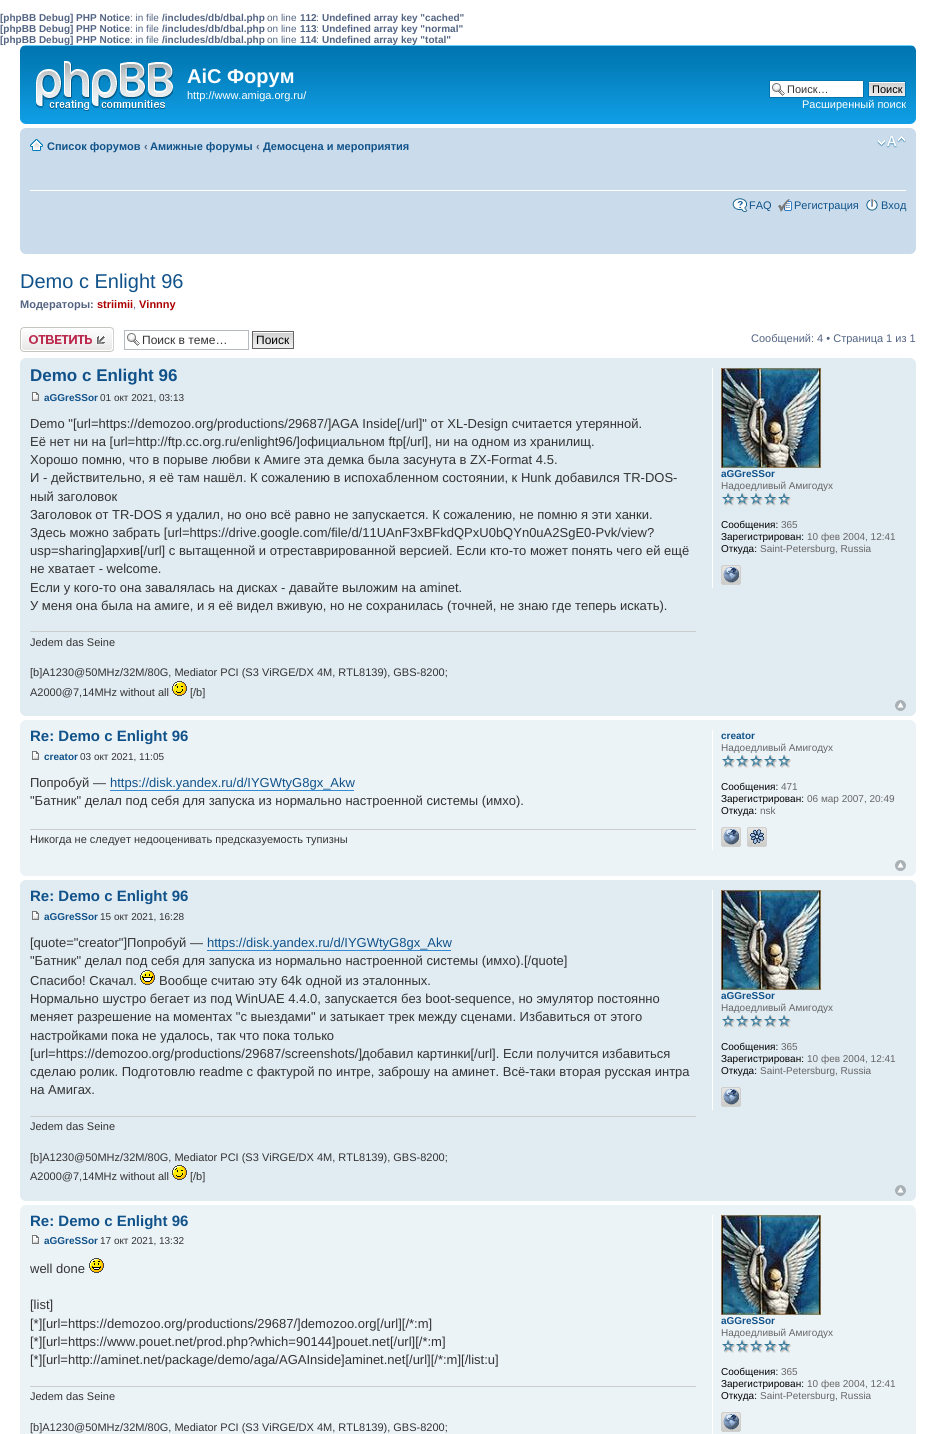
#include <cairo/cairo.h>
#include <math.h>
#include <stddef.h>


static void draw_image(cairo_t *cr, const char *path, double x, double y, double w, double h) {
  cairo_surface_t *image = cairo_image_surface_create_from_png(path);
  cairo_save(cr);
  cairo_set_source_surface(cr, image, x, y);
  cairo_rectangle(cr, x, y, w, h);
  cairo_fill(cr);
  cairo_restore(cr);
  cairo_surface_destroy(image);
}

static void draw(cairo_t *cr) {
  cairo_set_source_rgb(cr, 1, 1, 1);
  cairo_paint(cr);
  draw_image(cr, "images/1.png", 20, 45, 896, 79);
  draw_image(cr, "images/2.png", 20, 45, 5, 5);
  draw_image(cr, "images/3.png", 911, 45, 5, 5);
  draw_image(cr, "images/4.png", 36, 61, 137, 50);
  cairo_set_source_rgb(cr, 1, 1, 1);
  cairo_rectangle(cr, 770, 81, 93, 16);
  cairo_fill(cr);
  draw_image(cr, "images/5.png", 772, 83, 13, 13);
  cairo_rectangle(cr, 769.5, 80.5, 94, 17);
  cairo_set_source_rgb(cr, 0, 117 / 255.0, 176 / 255.0);
  cairo_set_line_width(cr, 1);
  cairo_stroke(cr);
  draw_image(cr, "images/6.png", 869, 82, 36, 14);
  cairo_rectangle(cr, 868.5, 81.5, 37, 15);
  cairo_stroke(cr);
  draw_image(cr, "images/7.png", 20, 119, 5, 5);
  draw_image(cr, "images/8.png", 911, 119, 5, 5);
  cairo_set_source_rgb(cr, 202 / 255.0, 220 / 255.0, 235 / 255.0);
  cairo_rectangle(cr, 20, 128, 896, 126);
  cairo_fill(cr);
  draw_image(cr, "images/9.png", 20, 128, 5, 5);
  draw_image(cr, "images/10.png", 911, 128, 5, 5);
  cairo_set_source_rgb(cr, 1, 1, 1);
  cairo_rectangle(cr, 30, 190, 876, 1);
  cairo_fill(cr);
  draw_image(cr, "images/11.png", 30, 139, 13, 12);
  draw_image(cr, "images/12.png", 877, 136, 29, 12);
  draw_image(cr, "images/13.png", 732, 198, 16, 14);
  draw_image(cr, "images/14.png", 778, 199, 14, 13);
  draw_image(cr, "images/15.png", 866, 199, 12, 12);
  draw_image(cr, "images/16.png", 20, 249, 5, 5);
  draw_image(cr, "images/17.png", 911, 249, 5, 5);
  draw_image(cr, "images/18.png", 20, 327, 94, 25);
  draw_image(cr, "images/5.png", 127, 333, 13, 13);
  cairo_rectangle(cr, 124.5, 330.5, 124, 19);
  cairo_set_source_rgb(cr, 180 / 255.0, 186 / 255.0, 192 / 255.0);
  cairo_stroke(cr);
  draw_image(cr, "images/19.png", 253, 332, 40, 16);
  cairo_rectangle(cr, 252.5, 331.5, 41, 17);
  cairo_set_source_rgb(cr, 102 / 255.0, 102 / 255.0, 102 / 255.0);
  cairo_stroke(cr);
  cairo_set_source_rgb(cr, 225 / 255.0, 235 / 255.0, 242 / 255.0);
  cairo_rectangle(cr, 20, 358, 896, 358);
  cairo_fill(cr);
  draw_image(cr, "images/20.png", 20, 358, 5, 5);
  draw_image(cr, "images/21.png", 911, 358, 5, 5);
  draw_image(cr, "images/22.png", 32, 392, 7, 9);
  cairo_set_source_rgb(cr, 204 / 255.0, 204 / 255.0, 204 / 255.0);
  cairo_rectangle(cr, 30, 631, 666, 1);
  cairo_fill(cr);
  draw_image(cr, "images/23.png", 172, 681, 15, 15);
  cairo_set_source_rgb(cr, 1, 1, 1);
  cairo_rectangle(cr, 712, 368, 1, 220);
  cairo_fill(cr);
  draw_image(cr, "images/24.png", 721, 368, 100, 100);
  draw_image(cr, "images/25.png", 722, 492, 69, 14);
  draw_image(cr, "images/26.png", 721, 565, 20, 20);
  draw_image(cr, "images/27.png", 895, 700, 11, 11);
  draw_image(cr, "images/28.png", 20, 711, 5, 5);
  draw_image(cr, "images/29.png", 911, 711, 5, 5);
  cairo_set_source_rgb(cr, 236 / 255.0, 243 / 255.0, 247 / 255.0);
  cairo_rectangle(cr, 20, 720, 896, 156);
  cairo_fill(cr);
  draw_image(cr, "images/30.png", 20, 720, 5, 5);
  draw_image(cr, "images/31.png", 911, 720, 5, 5);
  draw_image(cr, "images/32.png", 32, 751, 7, 9);
  cairo_set_source_rgb(cr, 54 / 255.0, 138 / 255.0, 210 / 255.0);
  cairo_rectangle(cr, 110, 790, 244, 1);
  cairo_fill(cr);
  cairo_set_source_rgb(cr, 204 / 255.0, 204 / 255.0, 204 / 255.0);
  cairo_rectangle(cr, 30, 829, 666, 1);
  cairo_fill(cr);
  cairo_set_source_rgb(cr, 1, 1, 1);
  cairo_rectangle(cr, 712, 730, 1, 120);
  cairo_fill(cr);
  draw_image(cr, "images/33.png", 722, 754, 69, 14);
  draw_image(cr, "images/34.png", 721, 827, 20, 20);
  draw_image(cr, "images/35.png", 747, 827, 20, 20);
  draw_image(cr, "images/36.png", 895, 860, 11, 11);
  draw_image(cr, "images/37.png", 20, 871, 5, 5);
  draw_image(cr, "images/38.png", 911, 871, 5, 5);
  cairo_set_source_rgb(cr, 225 / 255.0, 235 / 255.0, 242 / 255.0);
  cairo_rectangle(cr, 20, 880, 896, 321);
  cairo_fill(cr);
  draw_image(cr, "images/20.png", 20, 880, 5, 5);
  draw_image(cr, "images/21.png", 911, 880, 5, 5);
  draw_image(cr, "images/22.png", 32, 911, 7, 9);
  cairo_set_source_rgb(cr, 54 / 255.0, 138 / 255.0, 210 / 255.0);
  cairo_rectangle(cr, 207, 950, 244, 1);
  cairo_fill(cr);
  draw_image(cr, "images/39.png", 140, 970, 15, 15);
  cairo_set_source_rgb(cr, 204 / 255.0, 204 / 255.0, 204 / 255.0);
  cairo_rectangle(cr, 30, 1116, 666, 1);
  cairo_fill(cr);
  draw_image(cr, "images/23.png", 172, 1165, 15, 15);
  cairo_set_source_rgb(cr, 1, 1, 1);
  cairo_rectangle(cr, 712, 890, 1, 220);
  cairo_fill(cr);
  draw_image(cr, "images/24.png", 721, 890, 100, 100);
  draw_image(cr, "images/25.png", 722, 1014, 69, 14);
  draw_image(cr, "images/26.png", 721, 1087, 20, 20);
  draw_image(cr, "images/27.png", 895, 1185, 11, 11);
  draw_image(cr, "images/28.png", 20, 1196, 5, 5);
  draw_image(cr, "images/29.png", 911, 1196, 5, 5);
  cairo_set_source_rgb(cr, 236 / 255.0, 243 / 255.0, 247 / 255.0);
  cairo_rectangle(cr, 20, 1205, 896, 229);
  cairo_fill(cr);
  draw_image(cr, "images/30.png", 20, 1205, 5, 5);
  draw_image(cr, "images/31.png", 911, 1205, 5, 5);
  draw_image(cr, "images/32.png", 32, 1235, 7, 9);
  draw_image(cr, "images/40.png", 89, 1258, 15, 15);
  cairo_set_source_rgb(cr, 204 / 255.0, 204 / 255.0, 204 / 255.0);
  cairo_rectangle(cr, 30, 1386, 666, 1);
  cairo_fill(cr);
  cairo_set_source_rgb(cr, 1, 1, 1);
  cairo_rectangle(cr, 712, 1215, 1, 219);
  cairo_fill(cr);
  draw_image(cr, "images/24.png", 721, 1215, 100, 100);
  draw_image(cr, "images/33.png", 722, 1339, 69, 14);
  draw_image(cr, "images/34.png", 721, 1412, 20, 20);
  cairo_select_font_face(cr, "Liberation Sans", CAIRO_FONT_SLANT_NORMAL, CAIRO_FONT_WEIGHT_BOLD);
  cairo_set_font_size(cr, 10);
  cairo_set_source_rgb(cr, 83 / 255.0, 100 / 255.0, 130 / 255.0);
  cairo_move_to(cr, 0, 21);
  cairo_show_text(cr, "[phpBB Debug] PHP Notice");
  cairo_select_font_face(cr, "Liberation Sans", CAIRO_FONT_SLANT_NORMAL, CAIRO_FONT_WEIGHT_NORMAL);
  cairo_move_to(cr, 130, 21);
  cairo_show_text(cr, ": in file");
  cairo_select_font_face(cr, "Liberation Sans", CAIRO_FONT_SLANT_NORMAL, CAIRO_FONT_WEIGHT_BOLD);
  cairo_move_to(cr, 162, 21);
  cairo_show_text(cr, "/includes/db/dbal.php");
  cairo_select_font_face(cr, "Liberation Sans", CAIRO_FONT_SLANT_NORMAL, CAIRO_FONT_WEIGHT_NORMAL);
  cairo_move_to(cr, 267, 21);
  cairo_show_text(cr, "on line");
  cairo_select_font_face(cr, "Liberation Sans", CAIRO_FONT_SLANT_NORMAL, CAIRO_FONT_WEIGHT_BOLD);
  cairo_move_to(cr, 300, 21);
  cairo_show_text(cr, "112");
  cairo_select_font_face(cr, "Liberation Sans", CAIRO_FONT_SLANT_NORMAL, CAIRO_FONT_WEIGHT_NORMAL);
  cairo_move_to(cr, 316, 21);
  cairo_show_text(cr, ":");
  cairo_select_font_face(cr, "Liberation Sans", CAIRO_FONT_SLANT_NORMAL, CAIRO_FONT_WEIGHT_BOLD);
  cairo_move_to(cr, 322, 21);
  cairo_show_text(cr, "Undefined array key \"cached\"");
  cairo_move_to(cr, 0, 32);
  cairo_show_text(cr, "[phpBB Debug] PHP Notice");
  cairo_select_font_face(cr, "Liberation Sans", CAIRO_FONT_SLANT_NORMAL, CAIRO_FONT_WEIGHT_NORMAL);
  cairo_move_to(cr, 130, 32);
  cairo_show_text(cr, ": in file");
  cairo_select_font_face(cr, "Liberation Sans", CAIRO_FONT_SLANT_NORMAL, CAIRO_FONT_WEIGHT_BOLD);
  cairo_move_to(cr, 162, 32);
  cairo_show_text(cr, "/includes/db/dbal.php");
  cairo_select_font_face(cr, "Liberation Sans", CAIRO_FONT_SLANT_NORMAL, CAIRO_FONT_WEIGHT_NORMAL);
  cairo_move_to(cr, 267, 32);
  cairo_show_text(cr, "on line");
  cairo_select_font_face(cr, "Liberation Sans", CAIRO_FONT_SLANT_NORMAL, CAIRO_FONT_WEIGHT_BOLD);
  cairo_move_to(cr, 300, 32);
  cairo_show_text(cr, "113");
  cairo_select_font_face(cr, "Liberation Sans", CAIRO_FONT_SLANT_NORMAL, CAIRO_FONT_WEIGHT_NORMAL);
  cairo_move_to(cr, 316, 32);
  cairo_show_text(cr, ":");
  cairo_select_font_face(cr, "Liberation Sans", CAIRO_FONT_SLANT_NORMAL, CAIRO_FONT_WEIGHT_BOLD);
  cairo_move_to(cr, 322, 32);
  cairo_show_text(cr, "Undefined array key \"normal\"");
  cairo_move_to(cr, 0, 43);
  cairo_show_text(cr, "[phpBB Debug] PHP Notice");
  cairo_select_font_face(cr, "Liberation Sans", CAIRO_FONT_SLANT_NORMAL, CAIRO_FONT_WEIGHT_NORMAL);
  cairo_move_to(cr, 130, 43);
  cairo_show_text(cr, ": in file");
  cairo_select_font_face(cr, "Liberation Sans", CAIRO_FONT_SLANT_NORMAL, CAIRO_FONT_WEIGHT_BOLD);
  cairo_move_to(cr, 162, 43);
  cairo_show_text(cr, "/includes/db/dbal.php");
  cairo_select_font_face(cr, "Liberation Sans", CAIRO_FONT_SLANT_NORMAL, CAIRO_FONT_WEIGHT_NORMAL);
  cairo_move_to(cr, 267, 43);
  cairo_show_text(cr, "on line");
  cairo_select_font_face(cr, "Liberation Sans", CAIRO_FONT_SLANT_NORMAL, CAIRO_FONT_WEIGHT_BOLD);
  cairo_move_to(cr, 300, 43);
  cairo_show_text(cr, "114");
  cairo_select_font_face(cr, "Liberation Sans", CAIRO_FONT_SLANT_NORMAL, CAIRO_FONT_WEIGHT_NORMAL);
  cairo_move_to(cr, 316, 43);
  cairo_show_text(cr, ":");
  cairo_select_font_face(cr, "Liberation Sans", CAIRO_FONT_SLANT_NORMAL, CAIRO_FONT_WEIGHT_BOLD);
  cairo_move_to(cr, 322, 43);
  cairo_show_text(cr, "Undefined array key \"total\"");
  cairo_set_font_size(cr, 20);
  cairo_set_source_rgb(cr, 1, 1, 1);
  cairo_move_to(cr, 187, 83);
  cairo_show_text(cr, "AiC Форум");
  cairo_select_font_face(cr, "Liberation Sans", CAIRO_FONT_SLANT_NORMAL, CAIRO_FONT_WEIGHT_NORMAL);
  cairo_set_font_size(cr, 11);
  cairo_move_to(cr, 187, 99);
  cairo_show_text(cr, "http://www.amiga.org.ru/");
  cairo_set_source_rgb(cr, 51 / 255.0, 51 / 255.0, 51 / 255.0);
  cairo_move_to(cr, 787, 93);
  cairo_show_text(cr, "Поиск…");
  cairo_set_source_rgb(cr, 0, 0, 0);
  cairo_move_to(cr, 872, 93);
  cairo_show_text(cr, "Поиск");
  cairo_set_source_rgb(cr, 1, 1, 1);
  cairo_move_to(cr, 802, 108);
  cairo_show_text(cr, "Расширенный поиск");
  cairo_select_font_face(cr, "Liberation Sans", CAIRO_FONT_SLANT_NORMAL, CAIRO_FONT_WEIGHT_BOLD);
  cairo_set_source_rgb(cr, 16 / 255.0, 82 / 255.0, 137 / 255.0);
  cairo_move_to(cr, 47, 150);
  cairo_show_text(cr, "Список форумов");
  cairo_set_source_rgb(cr, 83 / 255.0, 100 / 255.0, 130 / 255.0);
  cairo_move_to(cr, 144, 150);
  cairo_show_text(cr, "‹");
  cairo_set_source_rgb(cr, 16 / 255.0, 82 / 255.0, 137 / 255.0);
  cairo_move_to(cr, 150, 150);
  cairo_show_text(cr, "Амижные форумы");
  cairo_set_source_rgb(cr, 83 / 255.0, 100 / 255.0, 130 / 255.0);
  cairo_move_to(cr, 256, 150);
  cairo_show_text(cr, "‹");
  cairo_set_source_rgb(cr, 16 / 255.0, 82 / 255.0, 137 / 255.0);
  cairo_move_to(cr, 263, 150);
  cairo_show_text(cr, "Демосцена и мероприятия");
  cairo_select_font_face(cr, "Liberation Sans", CAIRO_FONT_SLANT_NORMAL, CAIRO_FONT_WEIGHT_NORMAL);
  cairo_move_to(cr, 749, 209);
  cairo_show_text(cr, "FAQ");
  cairo_move_to(cr, 794, 209);
  cairo_show_text(cr, "Регистрация");
  cairo_move_to(cr, 881, 209);
  cairo_show_text(cr, "Вход");
  cairo_set_font_size(cr, 20);
  cairo_move_to(cr, 20, 288);
  cairo_show_text(cr, "Demo c Enlight 96");
  cairo_select_font_face(cr, "Liberation Sans", CAIRO_FONT_SLANT_NORMAL, CAIRO_FONT_WEIGHT_BOLD);
  cairo_set_font_size(cr, 11);
  cairo_set_source_rgb(cr, 83 / 255.0, 100 / 255.0, 130 / 255.0);
  cairo_move_to(cr, 20, 308);
  cairo_show_text(cr, "Модераторы:");
  cairo_set_source_rgb(cr, 170 / 255.0, 0, 0);
  cairo_move_to(cr, 97, 308);
  cairo_show_text(cr, "striimii");
  cairo_select_font_face(cr, "Liberation Sans", CAIRO_FONT_SLANT_NORMAL, CAIRO_FONT_WEIGHT_NORMAL);
  cairo_set_source_rgb(cr, 83 / 255.0, 100 / 255.0, 130 / 255.0);
  cairo_move_to(cr, 133, 308);
  cairo_show_text(cr, ",");
  cairo_select_font_face(cr, "Liberation Sans", CAIRO_FONT_SLANT_NORMAL, CAIRO_FONT_WEIGHT_BOLD);
  cairo_set_source_rgb(cr, 170 / 255.0, 0, 0);
  cairo_move_to(cr, 139, 308);
  cairo_show_text(cr, "Vinnny");
  cairo_select_font_face(cr, "Liberation Sans", CAIRO_FONT_SLANT_NORMAL, CAIRO_FONT_WEIGHT_NORMAL);
  cairo_set_font_size(cr, 12);
  cairo_set_source_rgb(cr, 51 / 255.0, 51 / 255.0, 51 / 255.0);
  cairo_move_to(cr, 142, 344);
  cairo_show_text(cr, "Поиск в теме…");
  cairo_set_source_rgb(cr, 0, 0, 0);
  cairo_move_to(cr, 256, 344);
  cairo_show_text(cr, "Поиск");
  cairo_set_font_size(cr, 11);
  cairo_set_source_rgb(cr, 83 / 255.0, 100 / 255.0, 130 / 255.0);
  cairo_move_to(cr, 751, 342);
  cairo_show_text(cr, "Сообщений: 4 • Страница 1 из 1");
  cairo_select_font_face(cr, "Liberation Sans", CAIRO_FONT_SLANT_NORMAL, CAIRO_FONT_WEIGHT_BOLD);
  cairo_set_font_size(cr, 17);
  cairo_set_source_rgb(cr, 16 / 255.0, 82 / 255.0, 137 / 255.0);
  cairo_move_to(cr, 30, 381);
  cairo_show_text(cr, "Demo c Enlight 96");
  cairo_set_font_size(cr, 10);
  cairo_move_to(cr, 44, 401);
  cairo_show_text(cr, "aGGreSSor");
  cairo_select_font_face(cr, "Liberation Sans", CAIRO_FONT_SLANT_NORMAL, CAIRO_FONT_WEIGHT_NORMAL);
  cairo_set_source_rgb(cr, 51 / 255.0, 51 / 255.0, 51 / 255.0);
  cairo_move_to(cr, 100, 401);
  cairo_show_text(cr, "01 окт 2021, 03:13");
  cairo_set_font_size(cr, 13);
  cairo_move_to(cr, 30, 428);
  cairo_show_text(cr, "Demo \"[url=https://demozoo.org/productions/29687/]AGA Inside[/url]\" от XL-Design считается утерянной.");
  cairo_move_to(cr, 30, 446);
  cairo_show_text(cr, "Её нет ни на [url=http://ftp.cc.org.ru/enlight96/]официальном ftp[/url], ни на одном из хранилищ.");
  cairo_move_to(cr, 30, 464);
  cairo_show_text(cr, "Хорошо помню, что в порыве любви к Амиге эта демка была засунута в ZX-Format 4.5.");
  cairo_move_to(cr, 30, 482);
  cairo_show_text(cr, "И - действительно, я её там нашёл. К сожалению в испохабленном состоянии, к Hunk добавился TR-DOS-");
  cairo_move_to(cr, 30, 501);
  cairo_show_text(cr, "ный заголовок");
  cairo_move_to(cr, 30, 519);
  cairo_show_text(cr, "Заголовок от TR-DOS я удалил, но оно всё равно не запускается. К сожалению, не помню я эти ханки.");
  cairo_move_to(cr, 30, 537);
  cairo_show_text(cr, "Здесь можно забрать [url=https://drive.google.com/file/d/11UAnF3xBFkdQPxU0bQYn0uA2SgE0-Pvk/view?");
  cairo_move_to(cr, 30, 555);
  cairo_show_text(cr, "usp=sharing]архив[/url] с вытащенной и отреставрированной версией. Если кто-то может понять чего ей ещё");
  cairo_move_to(cr, 30, 573);
  cairo_show_text(cr, "не хватает - welcome.");
  cairo_move_to(cr, 30, 592);
  cairo_show_text(cr, "Если у кого-то она завалялась на дисках - давайте выложим на aminet.");
  cairo_move_to(cr, 30, 610);
  cairo_show_text(cr, "У меня она была на амиге, и я её видел вживую, но не сохранилась (точней, не знаю где теперь искать).");
  cairo_set_font_size(cr, 11);
  cairo_move_to(cr, 30, 646);
  cairo_show_text(cr, "Jedem das Seine");
  cairo_move_to(cr, 30, 676);
  cairo_show_text(cr, "[b]A1230@50MHz/32M/80G, Mediator PCI (S3 ViRGE/DX 4M, RTL8139), GBS-8200;");
  cairo_move_to(cr, 30, 696);
  cairo_show_text(cr, "A2000@7,14MHz without all");
  cairo_move_to(cr, 190, 696);
  cairo_show_text(cr, "[/b]");
  cairo_select_font_face(cr, "Liberation Sans", CAIRO_FONT_SLANT_NORMAL, CAIRO_FONT_WEIGHT_BOLD);
  cairo_set_font_size(cr, 10);
  cairo_set_source_rgb(cr, 16 / 255.0, 82 / 255.0, 137 / 255.0);
  cairo_move_to(cr, 721, 477);
  cairo_show_text(cr, "aGGreSSor");
  cairo_select_font_face(cr, "Liberation Sans", CAIRO_FONT_SLANT_NORMAL, CAIRO_FONT_WEIGHT_NORMAL);
  cairo_set_source_rgb(cr, 102 / 255.0, 102 / 255.0, 102 / 255.0);
  cairo_move_to(cr, 721, 489);
  cairo_show_text(cr, "Надоедливый Амигодух");
  cairo_set_source_rgb(cr, 0, 0, 0);
  cairo_move_to(cr, 721, 528);
  cairo_show_text(cr, "Сообщения:");
  cairo_set_source_rgb(cr, 102 / 255.0, 102 / 255.0, 102 / 255.0);
  cairo_move_to(cr, 781, 528);
  cairo_show_text(cr, "365");
  cairo_set_source_rgb(cr, 0, 0, 0);
  cairo_move_to(cr, 721, 540);
  cairo_show_text(cr, "Зарегистрирован:");
  cairo_set_source_rgb(cr, 102 / 255.0, 102 / 255.0, 102 / 255.0);
  cairo_move_to(cr, 807, 540);
  cairo_show_text(cr, "10 фев 2004, 12:41");
  cairo_set_source_rgb(cr, 0, 0, 0);
  cairo_move_to(cr, 721, 552);
  cairo_show_text(cr, "Откуда:");
  cairo_set_source_rgb(cr, 102 / 255.0, 102 / 255.0, 102 / 255.0);
  cairo_move_to(cr, 760, 552);
  cairo_show_text(cr, "Saint-Petersburg, Russia");
  cairo_select_font_face(cr, "Liberation Sans", CAIRO_FONT_SLANT_NORMAL, CAIRO_FONT_WEIGHT_BOLD);
  cairo_set_font_size(cr, 15);
  cairo_set_source_rgb(cr, 16 / 255.0, 82 / 255.0, 137 / 255.0);
  cairo_move_to(cr, 30, 741);
  cairo_show_text(cr, "Re: Demo c Enlight 96");
  cairo_set_font_size(cr, 10);
  cairo_move_to(cr, 44, 760);
  cairo_show_text(cr, "creator");
  cairo_select_font_face(cr, "Liberation Sans", CAIRO_FONT_SLANT_NORMAL, CAIRO_FONT_WEIGHT_NORMAL);
  cairo_set_source_rgb(cr, 51 / 255.0, 51 / 255.0, 51 / 255.0);
  cairo_move_to(cr, 80, 760);
  cairo_show_text(cr, "03 окт 2021, 11:05");
  cairo_set_font_size(cr, 13);
  cairo_move_to(cr, 30, 787);
  cairo_show_text(cr, "Попробуй —");
  cairo_set_source_rgb(cr, 16 / 255.0, 82 / 255.0, 137 / 255.0);
  cairo_move_to(cr, 110, 787);
  cairo_show_text(cr, "https://disk.yandex.ru/d/IYGWtyG8gx_Akw");
  cairo_set_source_rgb(cr, 51 / 255.0, 51 / 255.0, 51 / 255.0);
  cairo_move_to(cr, 30, 805);
  cairo_show_text(cr, "\"Батник\" делал под себя для запуска из нормально настроенной системы (имхо).");
  cairo_set_font_size(cr, 11);
  cairo_move_to(cr, 30, 843);
  cairo_show_text(cr, "Никогда не следует недооценивать предсказуемость тупизны");
  cairo_select_font_face(cr, "Liberation Sans", CAIRO_FONT_SLANT_NORMAL, CAIRO_FONT_WEIGHT_BOLD);
  cairo_set_font_size(cr, 10);
  cairo_set_source_rgb(cr, 16 / 255.0, 82 / 255.0, 137 / 255.0);
  cairo_move_to(cr, 721, 739);
  cairo_show_text(cr, "creator");
  cairo_select_font_face(cr, "Liberation Sans", CAIRO_FONT_SLANT_NORMAL, CAIRO_FONT_WEIGHT_NORMAL);
  cairo_set_source_rgb(cr, 102 / 255.0, 102 / 255.0, 102 / 255.0);
  cairo_move_to(cr, 721, 751);
  cairo_show_text(cr, "Надоедливый Амигодух");
  cairo_set_source_rgb(cr, 0, 0, 0);
  cairo_move_to(cr, 721, 790);
  cairo_show_text(cr, "Сообщения:");
  cairo_set_source_rgb(cr, 102 / 255.0, 102 / 255.0, 102 / 255.0);
  cairo_move_to(cr, 781, 790);
  cairo_show_text(cr, "471");
  cairo_set_source_rgb(cr, 0, 0, 0);
  cairo_move_to(cr, 721, 802);
  cairo_show_text(cr, "Зарегистрирован:");
  cairo_set_source_rgb(cr, 102 / 255.0, 102 / 255.0, 102 / 255.0);
  cairo_move_to(cr, 807, 802);
  cairo_show_text(cr, "06 мар 2007, 20:49");
  cairo_set_source_rgb(cr, 0, 0, 0);
  cairo_move_to(cr, 721, 814);
  cairo_show_text(cr, "Откуда:");
  cairo_set_source_rgb(cr, 102 / 255.0, 102 / 255.0, 102 / 255.0);
  cairo_move_to(cr, 760, 814);
  cairo_show_text(cr, "nsk");
  cairo_select_font_face(cr, "Liberation Sans", CAIRO_FONT_SLANT_NORMAL, CAIRO_FONT_WEIGHT_BOLD);
  cairo_set_font_size(cr, 15);
  cairo_set_source_rgb(cr, 16 / 255.0, 82 / 255.0, 137 / 255.0);
  cairo_move_to(cr, 30, 901);
  cairo_show_text(cr, "Re: Demo c Enlight 96");
  cairo_set_font_size(cr, 10);
  cairo_move_to(cr, 44, 920);
  cairo_show_text(cr, "aGGreSSor");
  cairo_select_font_face(cr, "Liberation Sans", CAIRO_FONT_SLANT_NORMAL, CAIRO_FONT_WEIGHT_NORMAL);
  cairo_set_source_rgb(cr, 51 / 255.0, 51 / 255.0, 51 / 255.0);
  cairo_move_to(cr, 100, 920);
  cairo_show_text(cr, "15 окт 2021, 16:28");
  cairo_set_font_size(cr, 13);
  cairo_move_to(cr, 30, 947);
  cairo_show_text(cr, "[quote=\"creator\"]Попробуй —");
  cairo_set_source_rgb(cr, 16 / 255.0, 82 / 255.0, 137 / 255.0);
  cairo_move_to(cr, 207, 947);
  cairo_show_text(cr, "https://disk.yandex.ru/d/IYGWtyG8gx_Akw");
  cairo_set_source_rgb(cr, 51 / 255.0, 51 / 255.0, 51 / 255.0);
  cairo_move_to(cr, 30, 965);
  cairo_show_text(cr, "\"Батник\" делал под себя для запуска из нормально настроенной системы (имхо).[/quote]");
  cairo_move_to(cr, 30, 985);
  cairo_show_text(cr, "Спасибо! Скачал.");
  cairo_move_to(cr, 159, 985);
  cairo_show_text(cr, "Вообще считаю эту 64k одной из эталонных.");
  cairo_move_to(cr, 30, 1003);
  cairo_show_text(cr, "Нормально шустро бегает из под WinUAE 4.4.0, запускается без boot-sequence, но эмулятор постоянно");
  cairo_move_to(cr, 30, 1021);
  cairo_show_text(cr, "меняет разрешение на моментах \"с выездами\" и затыкает трек между сценами. Избавиться от этого");
  cairo_move_to(cr, 30, 1040);
  cairo_show_text(cr, "настройками пока не удалось, так что пока только");
  cairo_move_to(cr, 30, 1058);
  cairo_show_text(cr, "[url=https://demozoo.org/productions/29687/screenshots/]добавил картинки[/url]. Если получится избавиться");
  cairo_move_to(cr, 30, 1076);
  cairo_show_text(cr, "сделаю ролик. Подготовлю readme с фактурой по интре, заброшу на аминет. Всё-таки вторая русская интра");
  cairo_move_to(cr, 30, 1094);
  cairo_show_text(cr, "на Амигах.");
  cairo_set_font_size(cr, 11);
  cairo_move_to(cr, 30, 1130);
  cairo_show_text(cr, "Jedem das Seine");
  cairo_move_to(cr, 30, 1161);
  cairo_show_text(cr, "[b]A1230@50MHz/32M/80G, Mediator PCI (S3 ViRGE/DX 4M, RTL8139), GBS-8200;");
  cairo_move_to(cr, 30, 1180);
  cairo_show_text(cr, "A2000@7,14MHz without all");
  cairo_move_to(cr, 190, 1180);
  cairo_show_text(cr, "[/b]");
  cairo_select_font_face(cr, "Liberation Sans", CAIRO_FONT_SLANT_NORMAL, CAIRO_FONT_WEIGHT_BOLD);
  cairo_set_font_size(cr, 10);
  cairo_set_source_rgb(cr, 16 / 255.0, 82 / 255.0, 137 / 255.0);
  cairo_move_to(cr, 721, 999);
  cairo_show_text(cr, "aGGreSSor");
  cairo_select_font_face(cr, "Liberation Sans", CAIRO_FONT_SLANT_NORMAL, CAIRO_FONT_WEIGHT_NORMAL);
  cairo_set_source_rgb(cr, 102 / 255.0, 102 / 255.0, 102 / 255.0);
  cairo_move_to(cr, 721, 1011);
  cairo_show_text(cr, "Надоедливый Амигодух");
  cairo_set_source_rgb(cr, 0, 0, 0);
  cairo_move_to(cr, 721, 1050);
  cairo_show_text(cr, "Сообщения:");
  cairo_set_source_rgb(cr, 102 / 255.0, 102 / 255.0, 102 / 255.0);
  cairo_move_to(cr, 781, 1050);
  cairo_show_text(cr, "365");
  cairo_set_source_rgb(cr, 0, 0, 0);
  cairo_move_to(cr, 721, 1062);
  cairo_show_text(cr, "Зарегистрирован:");
  cairo_set_source_rgb(cr, 102 / 255.0, 102 / 255.0, 102 / 255.0);
  cairo_move_to(cr, 807, 1062);
  cairo_show_text(cr, "10 фев 2004, 12:41");
  cairo_set_source_rgb(cr, 0, 0, 0);
  cairo_move_to(cr, 721, 1074);
  cairo_show_text(cr, "Откуда:");
  cairo_set_source_rgb(cr, 102 / 255.0, 102 / 255.0, 102 / 255.0);
  cairo_move_to(cr, 760, 1074);
  cairo_show_text(cr, "Saint-Petersburg, Russia");
  cairo_select_font_face(cr, "Liberation Sans", CAIRO_FONT_SLANT_NORMAL, CAIRO_FONT_WEIGHT_BOLD);
  cairo_set_font_size(cr, 15);
  cairo_set_source_rgb(cr, 16 / 255.0, 82 / 255.0, 137 / 255.0);
  cairo_move_to(cr, 30, 1226);
  cairo_show_text(cr, "Re: Demo c Enlight 96");
  cairo_set_font_size(cr, 10);
  cairo_move_to(cr, 44, 1244);
  cairo_show_text(cr, "aGGreSSor");
  cairo_select_font_face(cr, "Liberation Sans", CAIRO_FONT_SLANT_NORMAL, CAIRO_FONT_WEIGHT_NORMAL);
  cairo_set_source_rgb(cr, 51 / 255.0, 51 / 255.0, 51 / 255.0);
  cairo_move_to(cr, 100, 1244);
  cairo_show_text(cr, "17 окт 2021, 13:32");
  cairo_set_font_size(cr, 13);
  cairo_move_to(cr, 30, 1273);
  cairo_show_text(cr, "well done");
  cairo_move_to(cr, 30, 1309);
  cairo_show_text(cr, "[list]");
  cairo_move_to(cr, 30, 1328);
  cairo_show_text(cr, "[*][url=https://demozoo.org/productions/29687/]demozoo.org[/url][/*:m]");
  cairo_move_to(cr, 30, 1346);
  cairo_show_text(cr, "[*][url=https://www.pouet.net/prod.php?which=90144]pouet.net[/url][/*:m]");
  cairo_move_to(cr, 30, 1364);
  cairo_show_text(cr, "[*][url=http://aminet.net/package/demo/aga/AGAInside]aminet.net[/url][/*:m][/list:u]");
  cairo_set_font_size(cr, 11);
  cairo_move_to(cr, 30, 1400);
  cairo_show_text(cr, "Jedem das Seine");
  cairo_move_to(cr, 30, 1431);
  cairo_show_text(cr, "[b]A1230@50MHz/32M/80G, Mediator PCI (S3 ViRGE/DX 4M, RTL8139), GBS-8200;");
  cairo_select_font_face(cr, "Liberation Sans", CAIRO_FONT_SLANT_NORMAL, CAIRO_FONT_WEIGHT_BOLD);
  cairo_set_font_size(cr, 10);
  cairo_set_source_rgb(cr, 16 / 255.0, 82 / 255.0, 137 / 255.0);
  cairo_move_to(cr, 721, 1324);
  cairo_show_text(cr, "aGGreSSor");
  cairo_select_font_face(cr, "Liberation Sans", CAIRO_FONT_SLANT_NORMAL, CAIRO_FONT_WEIGHT_NORMAL);
  cairo_set_source_rgb(cr, 102 / 255.0, 102 / 255.0, 102 / 255.0);
  cairo_move_to(cr, 721, 1336);
  cairo_show_text(cr, "Надоедливый Амигодух");
  cairo_set_source_rgb(cr, 0, 0, 0);
  cairo_move_to(cr, 721, 1375);
  cairo_show_text(cr, "Сообщения:");
  cairo_set_source_rgb(cr, 102 / 255.0, 102 / 255.0, 102 / 255.0);
  cairo_move_to(cr, 781, 1375);
  cairo_show_text(cr, "365");
  cairo_set_source_rgb(cr, 0, 0, 0);
  cairo_move_to(cr, 721, 1387);
  cairo_show_text(cr, "Зарегистрирован:");
  cairo_set_source_rgb(cr, 102 / 255.0, 102 / 255.0, 102 / 255.0);
  cairo_move_to(cr, 807, 1387);
  cairo_show_text(cr, "10 фев 2004, 12:41");
  cairo_set_source_rgb(cr, 0, 0, 0);
  cairo_move_to(cr, 721, 1399);
  cairo_show_text(cr, "Откуда:");
  cairo_set_source_rgb(cr, 102 / 255.0, 102 / 255.0, 102 / 255.0);
  cairo_move_to(cr, 760, 1399);
  cairo_show_text(cr, "Saint-Petersburg, Russia");
}

int main(void) {
  cairo_surface_t *surface = cairo_image_surface_create(CAIRO_FORMAT_RGB24, 936, 1434);
  cairo_t *cr = cairo_create(surface);
  cairo_font_options_t *options = cairo_font_options_create();
  cairo_font_options_set_hint_metrics(options, CAIRO_HINT_METRICS_OFF);
  cairo_font_options_set_hint_style(options, CAIRO_HINT_STYLE_NONE);
  cairo_set_font_options(cr, options);
  cairo_set_miter_limit(cr, 4);
  draw(cr);
  cairo_surface_write_to_png(surface, "out.png");
  cairo_font_options_destroy(options);
  cairo_destroy(cr);
  cairo_surface_destroy(surface);
  return 0;
}
